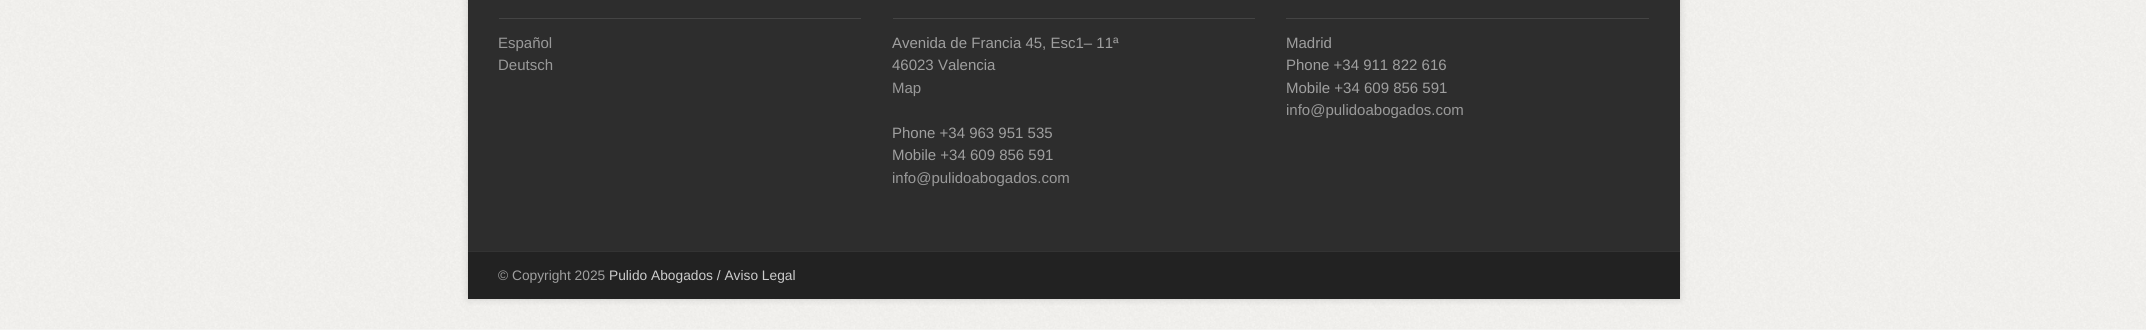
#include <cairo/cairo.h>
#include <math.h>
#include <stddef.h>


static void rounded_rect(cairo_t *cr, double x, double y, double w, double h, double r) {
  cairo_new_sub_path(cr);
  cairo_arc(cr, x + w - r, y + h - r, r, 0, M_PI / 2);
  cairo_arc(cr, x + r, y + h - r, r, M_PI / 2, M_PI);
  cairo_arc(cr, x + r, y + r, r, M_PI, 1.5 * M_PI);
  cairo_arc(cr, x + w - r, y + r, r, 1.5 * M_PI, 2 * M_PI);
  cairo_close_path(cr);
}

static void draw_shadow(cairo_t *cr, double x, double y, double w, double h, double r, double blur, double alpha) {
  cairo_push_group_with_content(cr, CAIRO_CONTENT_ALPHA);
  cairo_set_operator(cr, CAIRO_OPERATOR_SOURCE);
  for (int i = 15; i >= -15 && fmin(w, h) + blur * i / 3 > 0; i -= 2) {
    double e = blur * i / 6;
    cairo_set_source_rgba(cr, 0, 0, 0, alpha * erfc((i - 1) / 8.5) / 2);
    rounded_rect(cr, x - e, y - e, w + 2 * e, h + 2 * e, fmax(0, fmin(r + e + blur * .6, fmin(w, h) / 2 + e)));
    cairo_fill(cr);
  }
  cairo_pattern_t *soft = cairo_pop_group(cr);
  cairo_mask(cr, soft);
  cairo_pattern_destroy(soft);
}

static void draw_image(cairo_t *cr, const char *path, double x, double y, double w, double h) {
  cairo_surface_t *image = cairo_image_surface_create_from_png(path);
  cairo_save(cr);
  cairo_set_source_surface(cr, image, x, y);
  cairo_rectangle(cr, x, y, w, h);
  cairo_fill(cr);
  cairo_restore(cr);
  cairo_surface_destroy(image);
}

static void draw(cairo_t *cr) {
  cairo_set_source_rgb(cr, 247 / 255.0, 247 / 255.0, 247 / 255.0);
  cairo_paint(cr);
  draw_image(cr, "images/1.png", 0, 0, 2146, 330);
  cairo_set_source_rgb(cr, 0, 0, 0);
  draw_shadow(cr, 468, -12, 1212, 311, 0, 4, 0.15);
  cairo_set_source_rgb(cr, 45 / 255.0, 45 / 255.0, 45 / 255.0);
  cairo_rectangle(cr, 468, 0, 1212, 251);
  cairo_fill(cr);
  cairo_set_source_rgb(cr, 68 / 255.0, 68 / 255.0, 68 / 255.0);
  cairo_rectangle(cr, 499, 18, 362, 1);
  cairo_fill(cr);
  cairo_rectangle(cr, 893, 18, 362, 1);
  cairo_fill(cr);
  cairo_rectangle(cr, 1286, 18, 363, 1);
  cairo_fill(cr);
  cairo_set_source_rgb(cr, 34 / 255.0, 34 / 255.0, 34 / 255.0);
  cairo_rectangle(cr, 468, 252, 1212, 47);
  cairo_fill(cr);
  cairo_set_source_rgb(cr, 51 / 255.0, 51 / 255.0, 51 / 255.0);
  cairo_rectangle(cr, 468, 251, 1212, 1);
  cairo_fill(cr);
  cairo_select_font_face(cr, "Liberation Sans", CAIRO_FONT_SLANT_NORMAL, CAIRO_FONT_WEIGHT_NORMAL);
  cairo_set_font_size(cr, 15);
  cairo_set_source_rgb(cr, 153 / 255.0, 153 / 255.0, 153 / 255.0);
  cairo_move_to(cr, 498, 48);
  cairo_show_text(cr, "Español");
  cairo_move_to(cr, 498, 70);
  cairo_show_text(cr, "Deutsch");
  cairo_set_source_rgb(cr, 159 / 255.0, 159 / 255.0, 159 / 255.0);
  cairo_move_to(cr, 892, 48);
  cairo_show_text(cr, "Avenida de Francia 45, Esc1– 11ª");
  cairo_move_to(cr, 892, 70);
  cairo_show_text(cr, "46023 Valencia");
  cairo_set_source_rgb(cr, 153 / 255.0, 153 / 255.0, 153 / 255.0);
  cairo_move_to(cr, 892, 93);
  cairo_show_text(cr, "Map");
  cairo_set_source_rgb(cr, 159 / 255.0, 159 / 255.0, 159 / 255.0);
  cairo_move_to(cr, 892, 138);
  cairo_show_text(cr, "Phone +34 963 951 535");
  cairo_move_to(cr, 892, 160);
  cairo_show_text(cr, "Mobile +34 609 856 591");
  cairo_set_source_rgb(cr, 153 / 255.0, 153 / 255.0, 153 / 255.0);
  cairo_move_to(cr, 892, 183);
  cairo_show_text(cr, "info@pulidoabogados.com");
  cairo_set_source_rgb(cr, 159 / 255.0, 159 / 255.0, 159 / 255.0);
  cairo_move_to(cr, 1286, 48);
  cairo_show_text(cr, "Madrid");
  cairo_move_to(cr, 1286, 70);
  cairo_show_text(cr, "Phone +34 911 822 616");
  cairo_move_to(cr, 1286, 93);
  cairo_show_text(cr, "Mobile +34 609 856 591");
  cairo_set_source_rgb(cr, 153 / 255.0, 153 / 255.0, 153 / 255.0);
  cairo_move_to(cr, 1286, 115);
  cairo_show_text(cr, "info@pulidoabogados.com");
  cairo_set_font_size(cr, 13.75);
  cairo_set_source_rgb(cr, 159 / 255.0, 159 / 255.0, 159 / 255.0);
  cairo_move_to(cr, 498, 280);
  cairo_show_text(cr, "© Copyright 2025");
  cairo_set_source_rgb(cr, 204 / 255.0, 204 / 255.0, 204 / 255.0);
  cairo_move_to(cr, 609, 280);
  cairo_show_text(cr, "Pulido Abogados / Aviso Legal");
}

int main(void) {
  cairo_surface_t *surface = cairo_image_surface_create(CAIRO_FORMAT_RGB24, 2146, 330);
  cairo_t *cr = cairo_create(surface);
  cairo_font_options_t *options = cairo_font_options_create();
  cairo_font_options_set_hint_metrics(options, CAIRO_HINT_METRICS_OFF);
  cairo_font_options_set_hint_style(options, CAIRO_HINT_STYLE_NONE);
  cairo_set_font_options(cr, options);
  cairo_set_miter_limit(cr, 4);
  draw(cr);
  cairo_surface_write_to_png(surface, "out.png");
  cairo_font_options_destroy(options);
  cairo_destroy(cr);
  cairo_surface_destroy(surface);
  return 0;
}
